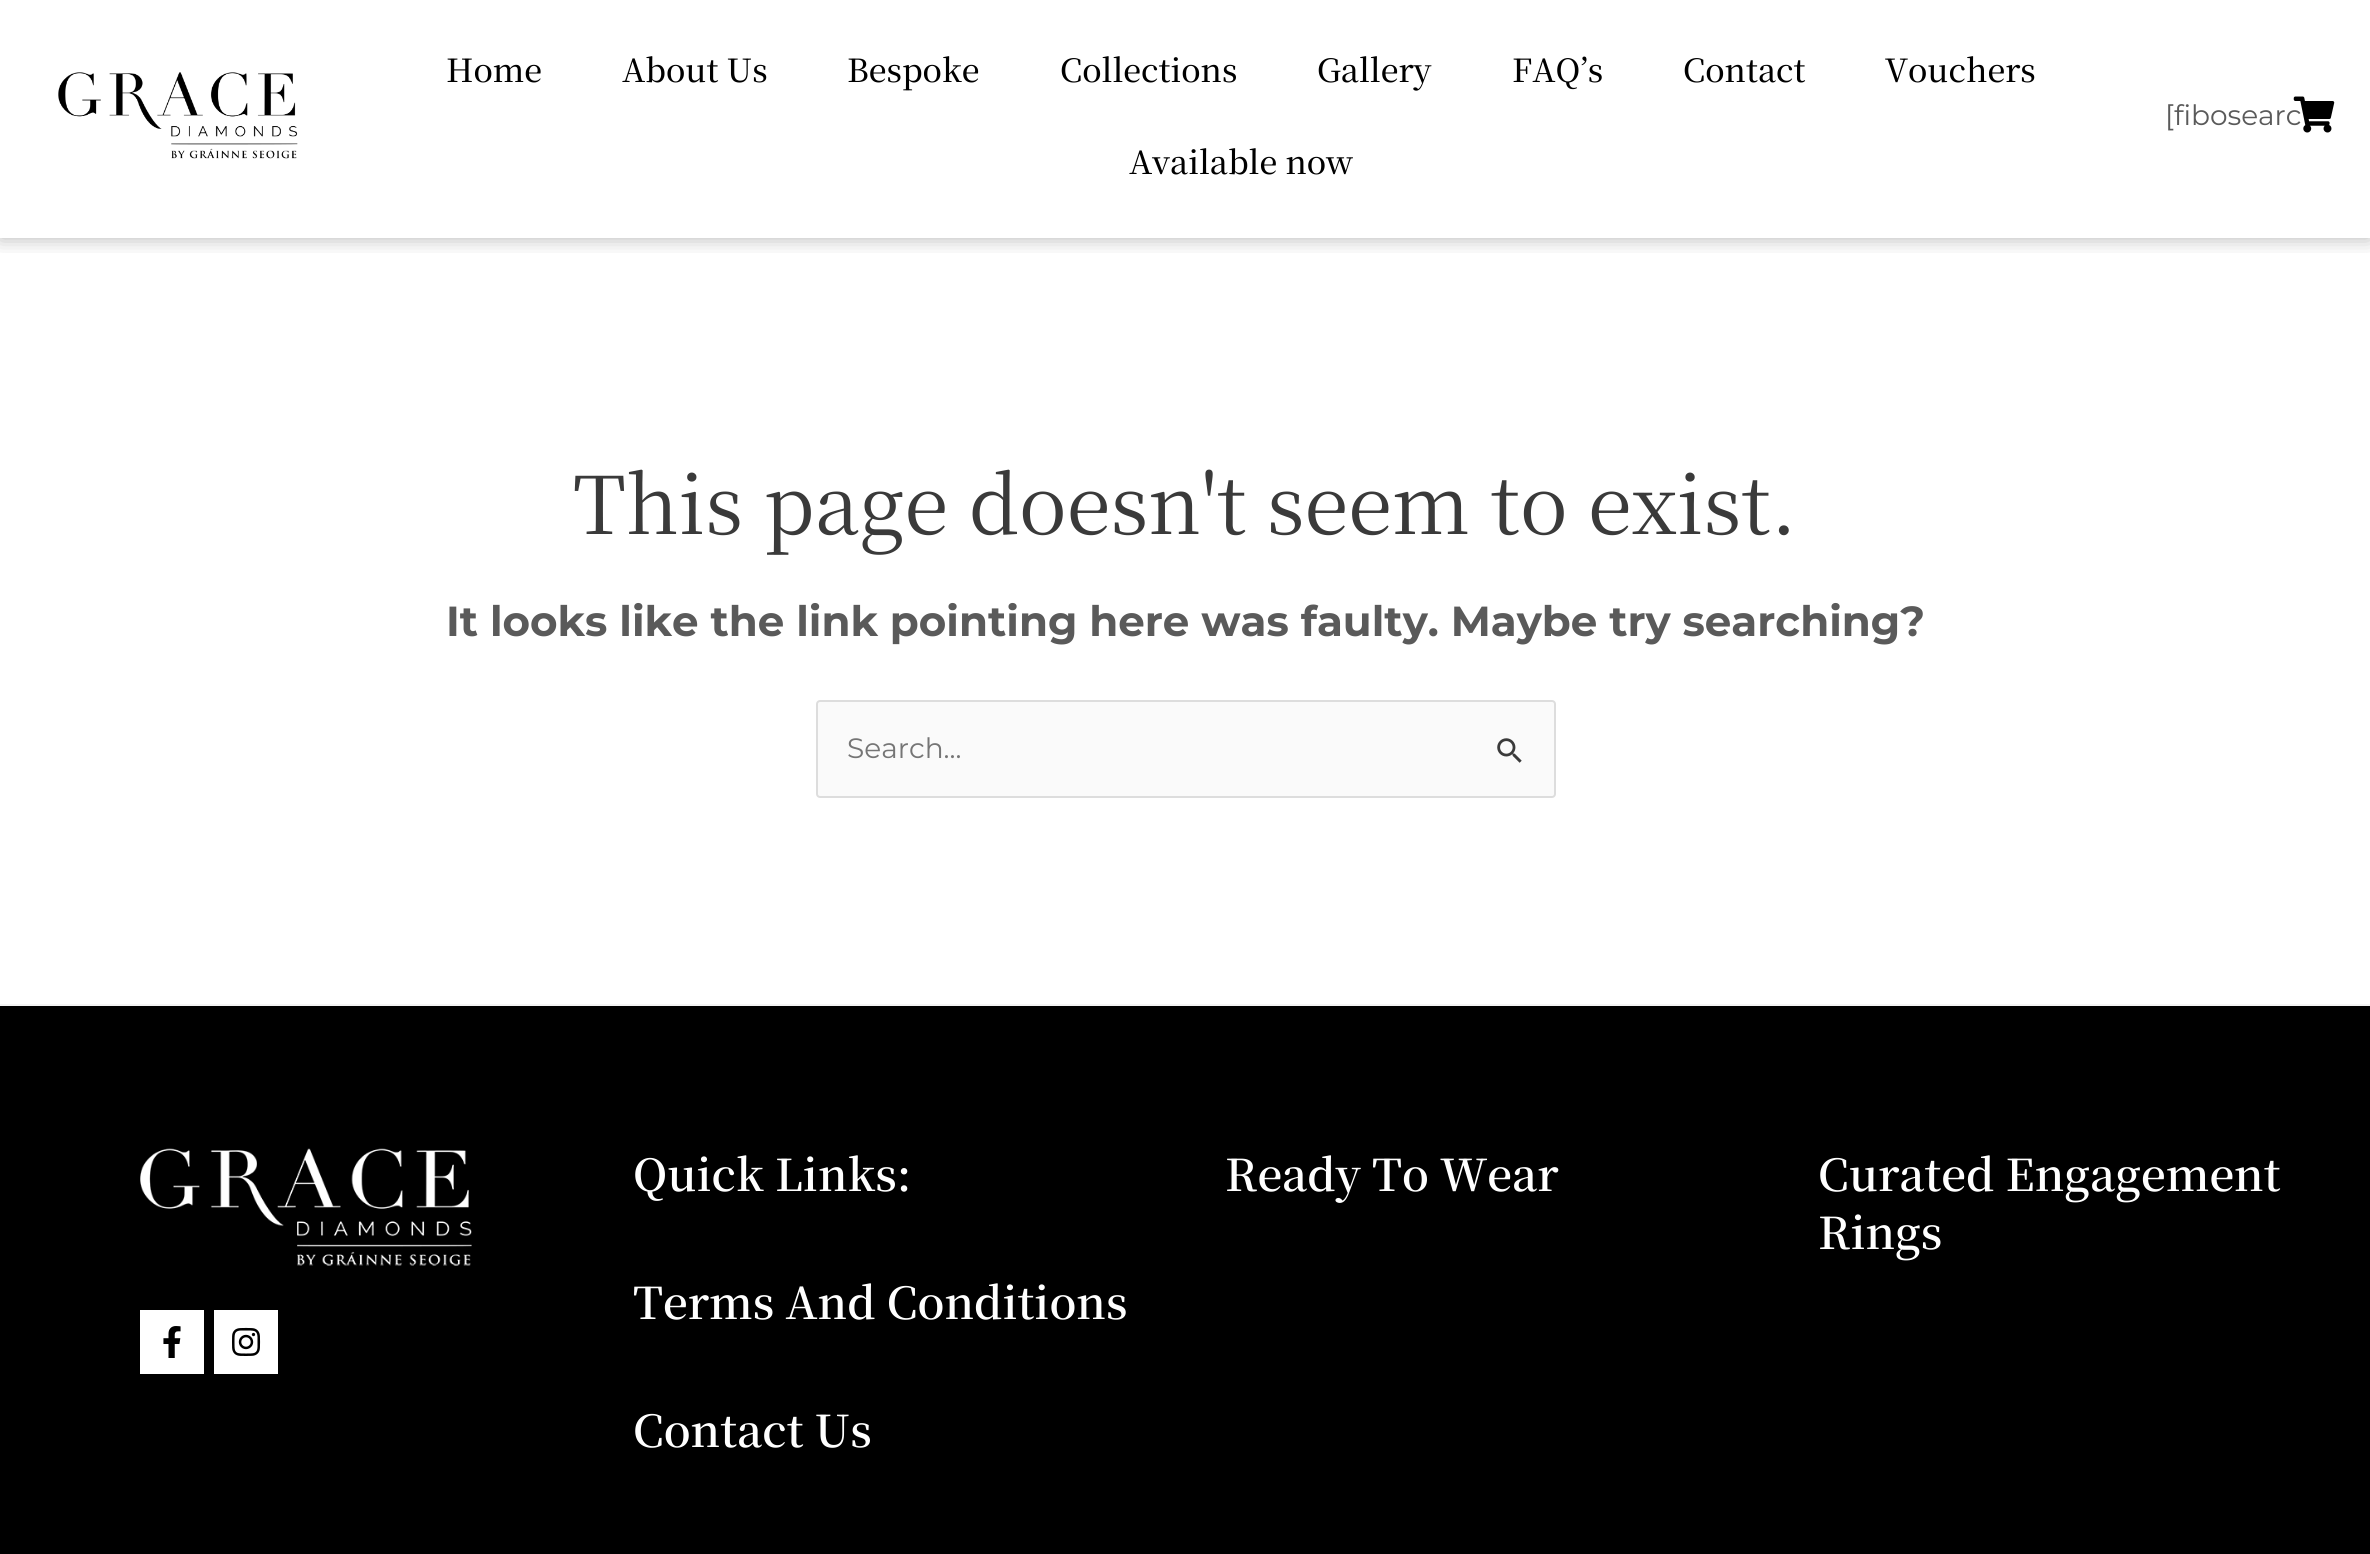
#include <cairo/cairo.h>
#include <math.h>
#include <stddef.h>


static void rounded_rect(cairo_t *cr, double x, double y, double w, double h, double r) {
  cairo_new_sub_path(cr);
  cairo_arc(cr, x + w - r, y + h - r, r, 0, M_PI / 2);
  cairo_arc(cr, x + r, y + h - r, r, M_PI / 2, M_PI);
  cairo_arc(cr, x + r, y + r, r, M_PI, 1.5 * M_PI);
  cairo_arc(cr, x + w - r, y + r, r, 1.5 * M_PI, 2 * M_PI);
  cairo_close_path(cr);
}

static void draw_shadow(cairo_t *cr, double x, double y, double w, double h, double r, double blur, double alpha) {
  cairo_push_group_with_content(cr, CAIRO_CONTENT_ALPHA);
  cairo_set_operator(cr, CAIRO_OPERATOR_SOURCE);
  for (int i = 15; i >= -15 && fmin(w, h) + blur * i / 3 > 0; i -= 2) {
    double e = blur * i / 6;
    cairo_set_source_rgba(cr, 0, 0, 0, alpha * erfc((i - 1) / 8.5) / 2);
    rounded_rect(cr, x - e, y - e, w + 2 * e, h + 2 * e, fmax(0, fmin(r + e + blur * .6, fmin(w, h) / 2 + e)));
    cairo_fill(cr);
  }
  cairo_pattern_t *soft = cairo_pop_group(cr);
  cairo_mask(cr, soft);
  cairo_pattern_destroy(soft);
}

static void draw_image(cairo_t *cr, const char *path, double x, double y, double w, double h) {
  cairo_surface_t *image = cairo_image_surface_create_from_png(path);
  cairo_save(cr);
  cairo_set_source_surface(cr, image, x, y);
  cairo_rectangle(cr, x, y, w, h);
  cairo_fill(cr);
  cairo_restore(cr);
  cairo_surface_destroy(image);
}

static void draw(cairo_t *cr) {
  cairo_set_source_rgb(cr, 1, 1, 1);
  cairo_paint(cr);
  cairo_save(cr);
  cairo_rectangle(cr, 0, 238, 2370, 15);
  cairo_clip(cr);
  cairo_set_source_rgb(cr, 0, 0, 0);
  draw_shadow(cr, 0, -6, 2370, 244, 0, 10, 0.3);
  cairo_restore(cr);
  draw_image(cr, "images/1.png", 58, 72, 240, 87);
  cairo_set_source_rgb(cr, 250 / 255.0, 250 / 255.0, 250 / 255.0);
  rounded_rect(cr, 817, 701, 738, 96, 3);
  cairo_fill_preserve(cr);
  cairo_set_source_rgb(cr, 221 / 255.0, 221 / 255.0, 221 / 255.0);
  cairo_stroke(cr);
  draw_image(cr, "images/3.png", 1497, 738, 25, 25);
  cairo_set_source_rgb(cr, 0, 0, 0);
  cairo_rectangle(cr, 0, 1006, 2370, 548);
  cairo_fill(cr);
  cairo_set_source_rgb(cr, 244 / 255.0, 244 / 255.0, 244 / 255.0);
  cairo_rectangle(cr, 0, 1004, 2370, 2);
  cairo_fill(cr);
  draw_image(cr, "images/4.png", 140, 1148, 332, 118);
  cairo_set_source_rgb(cr, 1, 1, 1);
  cairo_rectangle(cr, 140, 1310, 64, 64);
  cairo_fill(cr);
  draw_image(cr, "images/5.png", 163, 1326, 18, 32);
  cairo_rectangle(cr, 214, 1310, 64, 64);
  cairo_fill(cr);
  draw_image(cr, "images/6.png", 232, 1327, 29, 29);
  cairo_select_font_face(cr, "Noto Serif KR Medium", CAIRO_FONT_SLANT_NORMAL, CAIRO_FONT_WEIGHT_NORMAL);
  cairo_set_font_size(cr, 32);
  cairo_set_source_rgb(cr, 0, 0, 0);
  cairo_move_to(cr, 446, 82);
  cairo_show_text(cr, "Home");
  cairo_move_to(cr, 622, 82);
  cairo_show_text(cr, "About Us");
  cairo_move_to(cr, 847, 82);
  cairo_show_text(cr, "Bespoke");
  cairo_move_to(cr, 1060, 82);
  cairo_show_text(cr, "Collections");
  cairo_move_to(cr, 1317, 82);
  cairo_show_text(cr, "Gallery");
  cairo_move_to(cr, 1512, 82);
  cairo_show_text(cr, "FAQ’s");
  cairo_move_to(cr, 1683, 82);
  cairo_show_text(cr, "Contact");
  cairo_move_to(cr, 1885, 82);
  cairo_show_text(cr, "Vouchers");
  cairo_move_to(cr, 1129, 174);
  cairo_show_text(cr, "Available now");
  cairo_select_font_face(cr, "Montserrat", CAIRO_FONT_SLANT_NORMAL, CAIRO_FONT_WEIGHT_NORMAL);
  cairo_set_font_size(cr, 28);
  cairo_set_source_rgb(cr, 90 / 255.0, 90 / 255.0, 90 / 255.0);
  cairo_move_to(cr, 2165, 125);
  cairo_show_text(cr, "[fibosearc");
  draw_image(cr, "images/2.png", 2293, 96, 42, 37);
  cairo_select_font_face(cr, "Noto Serif KR", CAIRO_FONT_SLANT_NORMAL, CAIRO_FONT_WEIGHT_NORMAL);
  cairo_set_font_size(cr, 80);
  cairo_set_source_rgb(cr, 58 / 255.0, 58 / 255.0, 58 / 255.0);
  cairo_move_to(cr, 573, 534);
  cairo_show_text(cr, "This page doesn't seem to exist.");
  cairo_select_font_face(cr, "Montserrat", CAIRO_FONT_SLANT_NORMAL, CAIRO_FONT_WEIGHT_BOLD);
  cairo_set_font_size(cr, 42);
  cairo_set_source_rgb(cr, 90 / 255.0, 90 / 255.0, 90 / 255.0);
  cairo_move_to(cr, 446, 636);
  cairo_show_text(cr, "It looks like the link pointing here was faulty. Maybe try searching?");
  cairo_select_font_face(cr, "Montserrat", CAIRO_FONT_SLANT_NORMAL, CAIRO_FONT_WEIGHT_NORMAL);
  cairo_set_font_size(cr, 28);
  cairo_set_source_rgb(cr, 117 / 255.0, 117 / 255.0, 117 / 255.0);
  cairo_move_to(cr, 847, 758);
  cairo_show_text(cr, "Search...");
  cairo_select_font_face(cr, "Noto Serif KR SemiBold", CAIRO_FONT_SLANT_NORMAL, CAIRO_FONT_WEIGHT_NORMAL);
  cairo_set_font_size(cr, 44);
  cairo_set_source_rgb(cr, 1, 1, 1);
  cairo_move_to(cr, 633, 1191);
  cairo_show_text(cr, "Quick Links:");
  cairo_move_to(cr, 633, 1319);
  cairo_show_text(cr, "Terms And Conditions");
  cairo_move_to(cr, 633, 1447);
  cairo_show_text(cr, "Contact Us");
  cairo_move_to(cr, 1225, 1191);
  cairo_show_text(cr, "Ready To Wear");
  cairo_move_to(cr, 1818, 1191);
  cairo_show_text(cr, "Curated Engagement");
  cairo_move_to(cr, 1818, 1249);
  cairo_show_text(cr, "Rings");
}

int main(void) {
  cairo_surface_t *surface = cairo_image_surface_create(CAIRO_FORMAT_RGB24, 2370, 1554);
  cairo_t *cr = cairo_create(surface);
  cairo_font_options_t *options = cairo_font_options_create();
  cairo_font_options_set_hint_metrics(options, CAIRO_HINT_METRICS_OFF);
  cairo_font_options_set_hint_style(options, CAIRO_HINT_STYLE_NONE);
  cairo_set_font_options(cr, options);
  cairo_set_miter_limit(cr, 4);
  draw(cr);
  cairo_surface_write_to_png(surface, "out.png");
  cairo_font_options_destroy(options);
  cairo_destroy(cr);
  cairo_surface_destroy(surface);
  return 0;
}
